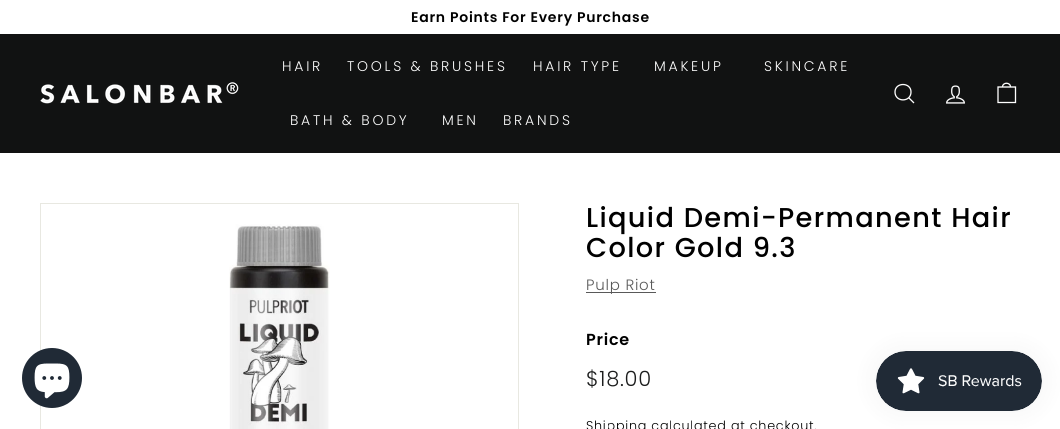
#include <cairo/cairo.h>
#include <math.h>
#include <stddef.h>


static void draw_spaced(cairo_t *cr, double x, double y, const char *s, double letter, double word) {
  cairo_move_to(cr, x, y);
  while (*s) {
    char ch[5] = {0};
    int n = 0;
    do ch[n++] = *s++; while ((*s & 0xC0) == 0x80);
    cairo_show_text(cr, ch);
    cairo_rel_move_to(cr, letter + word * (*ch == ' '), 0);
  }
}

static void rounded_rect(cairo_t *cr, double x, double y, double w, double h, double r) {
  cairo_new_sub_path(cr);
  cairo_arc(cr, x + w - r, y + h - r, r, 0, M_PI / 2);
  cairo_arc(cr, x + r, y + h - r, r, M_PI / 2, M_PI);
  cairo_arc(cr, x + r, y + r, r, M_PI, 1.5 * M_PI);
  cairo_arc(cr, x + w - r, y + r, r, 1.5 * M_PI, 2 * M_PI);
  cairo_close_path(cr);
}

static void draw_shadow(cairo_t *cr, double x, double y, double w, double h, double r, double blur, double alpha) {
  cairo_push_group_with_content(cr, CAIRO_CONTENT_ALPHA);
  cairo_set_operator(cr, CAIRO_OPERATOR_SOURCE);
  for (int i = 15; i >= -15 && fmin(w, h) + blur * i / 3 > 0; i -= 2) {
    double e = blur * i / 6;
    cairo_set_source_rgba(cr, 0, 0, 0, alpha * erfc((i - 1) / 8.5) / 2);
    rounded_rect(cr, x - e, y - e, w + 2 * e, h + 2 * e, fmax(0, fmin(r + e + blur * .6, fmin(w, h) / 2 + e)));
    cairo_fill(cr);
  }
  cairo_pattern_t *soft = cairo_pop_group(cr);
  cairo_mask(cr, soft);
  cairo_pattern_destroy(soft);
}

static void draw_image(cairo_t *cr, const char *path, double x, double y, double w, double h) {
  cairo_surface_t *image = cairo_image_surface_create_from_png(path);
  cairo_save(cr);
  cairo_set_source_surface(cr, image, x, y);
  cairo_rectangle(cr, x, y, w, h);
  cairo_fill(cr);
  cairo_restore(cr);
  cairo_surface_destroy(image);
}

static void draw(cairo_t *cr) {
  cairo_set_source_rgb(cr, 1, 1, 1);
  cairo_paint(cr);
  cairo_set_source_rgb(cr, 17 / 255.0, 18 / 255.0, 18 / 255.0);
  cairo_rectangle(cr, 0, 34, 1060, 119);
  cairo_fill(cr);
  draw_image(cr, "images/1.png", 40, 82, 199, 22);
  cairo_new_path(cr);
  cairo_move_to(cr, 911, 92);
  cairo_curve_to(cr, 911, 102.5, 895, 102.5, 895, 92);
  cairo_curve_to(cr, 895, 82, 911, 82, 911, 92);
  cairo_close_path(cr);
  cairo_move_to(cr, 914, 103);
  cairo_line_to(cr, 908.5, 97.5);
  cairo_set_source_rgb(cr, 1, 1, 1);
  cairo_set_line_width(cr, 1.3);
  cairo_stroke(cr);
  draw_image(cr, "images/2.png", 946, 85, 19, 19);
  cairo_new_path(cr);
  cairo_move_to(cr, 1002.5, 87);
  cairo_curve_to(cr, 1002.5, 82, 1010.5, 82, 1010.5, 87);
  cairo_move_to(cr, 998, 87);
  cairo_line_to(cr, 1015.5, 87);
  cairo_line_to(cr, 1015.5, 102.5);
  cairo_line_to(cr, 998, 102.5);
  cairo_close_path(cr);
  cairo_stroke(cr);
  cairo_rectangle(cr, 40.5, 203.5, 478, 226);
  cairo_set_source_rgb(cr, 232 / 255.0, 232 / 255.0, 225 / 255.0);
  cairo_set_line_width(cr, 1);
  cairo_stroke(cr);
  draw_image(cr, "images/3.png", 229, 224, 101, 205);
  cairo_set_source_rgb(cr, 89 / 255.0, 89 / 255.0, 89 / 255.0);
  cairo_rectangle(cr, 586, 292, 70, 1);
  cairo_fill(cr);
  cairo_set_source_rgb(cr, 32 / 255.0, 42 / 255.0, 54 / 255.0);
  cairo_arc(cr, 52, 378, 30, 0, 2 * M_PI);
  cairo_fill(cr);
  draw_image(cr, "images/4.png", 34, 363, 36, 36);
  cairo_set_source_rgb(cr, 0, 0, 0);
  draw_shadow(cr, 876, 351, 166, 60, 30, 12.5, 0.05);
  draw_image(cr, "images/5.png", 876, 351, 166, 60);
  cairo_select_font_face(cr, "Poppins SemiBold", CAIRO_FONT_SLANT_NORMAL, CAIRO_FONT_WEIGHT_NORMAL);
  cairo_set_font_size(cr, 14);
  cairo_set_source_rgb(cr, 0, 0, 0);
  draw_spaced(cr, 411, 22, "Earn Points For Every Purchase", 0.75, 0);
  cairo_select_font_face(cr, "Poppins Light", CAIRO_FONT_SLANT_NORMAL, CAIRO_FONT_WEIGHT_NORMAL);
  cairo_set_source_rgb(cr, 1, 1, 1);
  draw_spaced(cr, 282, 71, "HAIR", 2.75, 0);
  draw_spaced(cr, 347, 71, "TOOLS & BRUSHES", 2.75, 0);
  draw_spaced(cr, 533, 71, "HAIR TYPE", 2.75, 0);
  draw_spaced(cr, 654, 71, "MAKEUP", 2.75, 0);
  draw_spaced(cr, 764, 71, "SKINCARE", 2.75, 0);
  draw_spaced(cr, 290, 125, "BATH & BODY", 2.75, 0);
  draw_spaced(cr, 442, 125, "MEN", 2.75, 0);
  draw_spaced(cr, 503, 125, "BRANDS", 2.75, 0);
  cairo_select_font_face(cr, "Poppins Medium", CAIRO_FONT_SLANT_NORMAL, CAIRO_FONT_WEIGHT_NORMAL);
  cairo_set_font_size(cr, 27.25);
  cairo_set_source_rgb(cr, 0, 0, 0);
  draw_spaced(cr, 586, 227, "Liquid Demi-Permanent Hair", 1.35, 0);
  draw_spaced(cr, 586, 257, "Color Gold 9.3", 1.35, 0);
  cairo_select_font_face(cr, "Poppins Light", CAIRO_FONT_SLANT_NORMAL, CAIRO_FONT_WEIGHT_NORMAL);
  cairo_set_font_size(cr, 15);
  cairo_set_source_rgb(cr, 89 / 255.0, 89 / 255.0, 89 / 255.0);
  draw_spaced(cr, 586, 290, "Pulp Riot", 0.75, 0);
  cairo_select_font_face(cr, "Poppins SemiBold", CAIRO_FONT_SLANT_NORMAL, CAIRO_FONT_WEIGHT_NORMAL);
  cairo_set_font_size(cr, 16);
  cairo_set_source_rgb(cr, 0, 0, 0);
  draw_spaced(cr, 586, 345, "Price", 0.75, 0);
  cairo_select_font_face(cr, "Poppins Light", CAIRO_FONT_SLANT_NORMAL, CAIRO_FONT_WEIGHT_NORMAL);
  cairo_set_font_size(cr, 21);
  cairo_set_source_rgb(cr, 28 / 255.0, 29 / 255.0, 29 / 255.0);
  draw_spaced(cr, 586, 386, "$18.00", 0.75, 0);
  cairo_set_font_size(cr, 12.75);
  cairo_set_source_rgb(cr, 0, 0, 0);
  draw_spaced(cr, 586, 430, "Shipping calculated at checkout.", 0.75, 0);
}

int main(void) {
  cairo_surface_t *surface = cairo_image_surface_create(CAIRO_FORMAT_RGB24, 1060, 429);
  cairo_t *cr = cairo_create(surface);
  cairo_font_options_t *options = cairo_font_options_create();
  cairo_font_options_set_hint_metrics(options, CAIRO_HINT_METRICS_OFF);
  cairo_font_options_set_hint_style(options, CAIRO_HINT_STYLE_NONE);
  cairo_set_font_options(cr, options);
  cairo_set_miter_limit(cr, 4);
  draw(cr);
  cairo_surface_write_to_png(surface, "out.png");
  cairo_font_options_destroy(options);
  cairo_destroy(cr);
  cairo_surface_destroy(surface);
  return 0;
}
